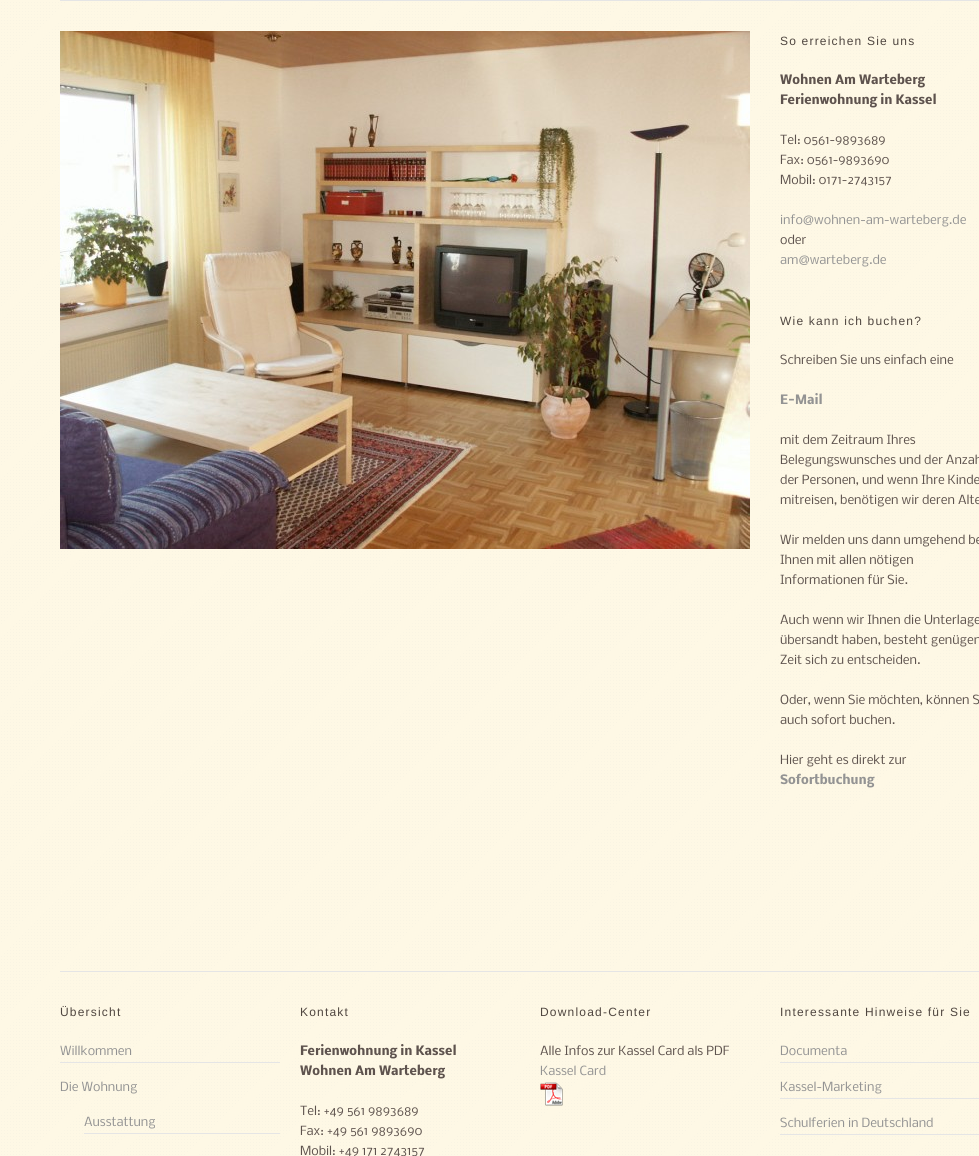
#include <cairo/cairo.h>
#include <math.h>
#include <stddef.h>


static void draw_spaced(cairo_t *cr, double x, double y, const char *s, double letter, double word) {
  cairo_move_to(cr, x, y);
  while (*s) {
    char ch[5] = {0};
    int n = 0;
    do ch[n++] = *s++; while ((*s & 0xC0) == 0x80);
    cairo_show_text(cr, ch);
    cairo_rel_move_to(cr, letter + word * (*ch == ' '), 0);
  }
}

static void draw_image(cairo_t *cr, const char *path, double x, double y, double w, double h) {
  cairo_surface_t *image = cairo_image_surface_create_from_png(path);
  cairo_save(cr);
  cairo_set_source_surface(cr, image, x, y);
  cairo_rectangle(cr, x, y, w, h);
  cairo_fill(cr);
  cairo_restore(cr);
  cairo_surface_destroy(image);
}

static void draw(cairo_t *cr) {
  cairo_set_source_rgb(cr, 254 / 255.0, 248 / 255.0, 229 / 255.0);
  cairo_paint(cr);
  draw_image(cr, "images/1.png", 1, 2, 976, 1153);
  cairo_set_source_rgb(cr, 229 / 255.0, 229 / 255.0, 229 / 255.0);
  cairo_rectangle(cr, 60, 0, 919, 1);
  cairo_fill(cr);
  draw_image(cr, "images/2.png", 60, 31, 690, 518);
  cairo_rectangle(cr, 60, 971, 919, 1);
  cairo_fill(cr);
  cairo_rectangle(cr, 60, 1062, 220, 1);
  cairo_fill(cr);
  cairo_rectangle(cr, 84, 1133, 196, 1);
  cairo_fill(cr);
  draw_image(cr, "images/3.png", 540, 1082, 23, 24);
  cairo_rectangle(cr, 780, 1062, 199, 1);
  cairo_fill(cr);
  cairo_rectangle(cr, 780, 1098, 199, 1);
  cairo_fill(cr);
  cairo_rectangle(cr, 780, 1134, 199, 1);
  cairo_fill(cr);
  cairo_select_font_face(cr, "Liberation Sans", CAIRO_FONT_SLANT_NORMAL, CAIRO_FONT_WEIGHT_NORMAL);
  cairo_set_font_size(cr, 12);
  cairo_set_source_rgb(cr, 79 / 255.0, 70 / 255.0, 64 / 255.0);
  draw_spaced(cr, 780, 45, "So erreichen Sie uns", 1.2, 0);
  cairo_select_font_face(cr, "Nobile", CAIRO_FONT_SLANT_NORMAL, CAIRO_FONT_WEIGHT_BOLD);
  cairo_set_source_rgb(cr, 94 / 255.0, 83 / 255.0, 78 / 255.0);
  cairo_move_to(cr, 780, 84);
  cairo_show_text(cr, "Wohnen Am Warteberg");
  cairo_move_to(cr, 780, 104);
  cairo_show_text(cr, "Ferienwohnung in Kassel");
  cairo_select_font_face(cr, "Nobile", CAIRO_FONT_SLANT_NORMAL, CAIRO_FONT_WEIGHT_NORMAL);
  cairo_move_to(cr, 780, 144);
  cairo_show_text(cr, "Tel: 0561-9893689");
  cairo_move_to(cr, 780, 164);
  cairo_show_text(cr, "Fax: 0561-9893690");
  cairo_move_to(cr, 780, 184);
  cairo_show_text(cr, "Mobil: 0171-2743157");
  cairo_set_source_rgb(cr, 147 / 255.0, 147 / 255.0, 147 / 255.0);
  cairo_move_to(cr, 780, 224);
  cairo_show_text(cr, "info@wohnen-am-warteberg.de");
  cairo_set_source_rgb(cr, 94 / 255.0, 83 / 255.0, 78 / 255.0);
  cairo_move_to(cr, 780, 244);
  cairo_show_text(cr, "oder");
  cairo_set_source_rgb(cr, 147 / 255.0, 147 / 255.0, 147 / 255.0);
  cairo_move_to(cr, 780, 264);
  cairo_show_text(cr, "am@warteberg.de");
  cairo_select_font_face(cr, "Liberation Sans", CAIRO_FONT_SLANT_NORMAL, CAIRO_FONT_WEIGHT_NORMAL);
  cairo_set_source_rgb(cr, 79 / 255.0, 70 / 255.0, 64 / 255.0);
  draw_spaced(cr, 780, 325, "Wie kann ich buchen?", 1.2, 0);
  cairo_select_font_face(cr, "Nobile", CAIRO_FONT_SLANT_NORMAL, CAIRO_FONT_WEIGHT_NORMAL);
  cairo_set_source_rgb(cr, 94 / 255.0, 83 / 255.0, 78 / 255.0);
  cairo_move_to(cr, 780, 364);
  cairo_show_text(cr, "Schreiben Sie uns einfach eine");
  cairo_select_font_face(cr, "Nobile", CAIRO_FONT_SLANT_NORMAL, CAIRO_FONT_WEIGHT_BOLD);
  cairo_set_source_rgb(cr, 147 / 255.0, 147 / 255.0, 147 / 255.0);
  cairo_move_to(cr, 780, 404);
  cairo_show_text(cr, "E-Mail");
  cairo_select_font_face(cr, "Nobile", CAIRO_FONT_SLANT_NORMAL, CAIRO_FONT_WEIGHT_NORMAL);
  cairo_set_source_rgb(cr, 94 / 255.0, 83 / 255.0, 78 / 255.0);
  cairo_move_to(cr, 780, 444);
  cairo_show_text(cr, "mit dem Zeitraum Ihres");
  cairo_move_to(cr, 780, 464);
  cairo_show_text(cr, "Belegungswunsches und der Anzah");
  cairo_move_to(cr, 780, 484);
  cairo_show_text(cr, "der Personen, und wenn Ihre Kinde");
  cairo_move_to(cr, 780, 504);
  cairo_show_text(cr, "mitreisen, benötigen wir deren Alte");
  cairo_move_to(cr, 780, 544);
  cairo_show_text(cr, "Wir melden uns dann umgehend be");
  cairo_move_to(cr, 780, 564);
  cairo_show_text(cr, "Ihnen mit allen nötigen");
  cairo_move_to(cr, 780, 584);
  cairo_show_text(cr, "Informationen für Sie.");
  cairo_move_to(cr, 780, 624);
  cairo_show_text(cr, "Auch wenn wir Ihnen die Unterlage");
  cairo_move_to(cr, 780, 644);
  cairo_show_text(cr, "übersandt haben, besteht genügen");
  cairo_move_to(cr, 780, 664);
  cairo_show_text(cr, "Zeit sich zu entscheiden.");
  cairo_move_to(cr, 780, 704);
  cairo_show_text(cr, "Oder, wenn Sie möchten, können S");
  cairo_move_to(cr, 780, 724);
  cairo_show_text(cr, "auch sofort buchen.");
  cairo_move_to(cr, 780, 764);
  cairo_show_text(cr, "Hier geht es direkt zur");
  cairo_select_font_face(cr, "Nobile", CAIRO_FONT_SLANT_NORMAL, CAIRO_FONT_WEIGHT_BOLD);
  cairo_set_source_rgb(cr, 147 / 255.0, 147 / 255.0, 147 / 255.0);
  cairo_move_to(cr, 780, 784);
  cairo_show_text(cr, "Sofortbuchung");
  cairo_select_font_face(cr, "Liberation Sans", CAIRO_FONT_SLANT_NORMAL, CAIRO_FONT_WEIGHT_NORMAL);
  cairo_set_source_rgb(cr, 79 / 255.0, 70 / 255.0, 64 / 255.0);
  draw_spaced(cr, 60, 1016, "Übersicht", 1.2, 0);
  cairo_select_font_face(cr, "Nobile", CAIRO_FONT_SLANT_NORMAL, CAIRO_FONT_WEIGHT_NORMAL);
  cairo_set_source_rgb(cr, 147 / 255.0, 147 / 255.0, 147 / 255.0);
  cairo_move_to(cr, 60, 1055);
  cairo_show_text(cr, "Willkommen");
  cairo_move_to(cr, 60, 1091);
  cairo_show_text(cr, "Die Wohnung");
  cairo_move_to(cr, 84, 1126);
  cairo_show_text(cr, "Ausstattung");
  cairo_select_font_face(cr, "Liberation Sans", CAIRO_FONT_SLANT_NORMAL, CAIRO_FONT_WEIGHT_NORMAL);
  cairo_set_source_rgb(cr, 79 / 255.0, 70 / 255.0, 64 / 255.0);
  draw_spaced(cr, 300, 1016, "Kontakt", 1.2, 0);
  cairo_select_font_face(cr, "Nobile", CAIRO_FONT_SLANT_NORMAL, CAIRO_FONT_WEIGHT_BOLD);
  cairo_set_source_rgb(cr, 94 / 255.0, 83 / 255.0, 78 / 255.0);
  cairo_move_to(cr, 300, 1055);
  cairo_show_text(cr, "Ferienwohnung in Kassel");
  cairo_move_to(cr, 300, 1075);
  cairo_show_text(cr, "Wohnen Am Warteberg");
  cairo_select_font_face(cr, "Nobile", CAIRO_FONT_SLANT_NORMAL, CAIRO_FONT_WEIGHT_NORMAL);
  cairo_move_to(cr, 300, 1115);
  cairo_show_text(cr, "Tel: +49 561 9893689");
  cairo_move_to(cr, 300, 1135);
  cairo_show_text(cr, "Fax: +49 561 9893690");
  cairo_move_to(cr, 300, 1155);
  cairo_show_text(cr, "Mobil: +49 171 2743157");
  cairo_select_font_face(cr, "Liberation Sans", CAIRO_FONT_SLANT_NORMAL, CAIRO_FONT_WEIGHT_NORMAL);
  cairo_set_source_rgb(cr, 79 / 255.0, 70 / 255.0, 64 / 255.0);
  draw_spaced(cr, 540, 1016, "Download-Center", 1.2, 0);
  cairo_select_font_face(cr, "Nobile", CAIRO_FONT_SLANT_NORMAL, CAIRO_FONT_WEIGHT_NORMAL);
  cairo_set_source_rgb(cr, 94 / 255.0, 83 / 255.0, 78 / 255.0);
  cairo_move_to(cr, 540, 1055);
  cairo_show_text(cr, "Alle Infos zur Kassel Card als PDF");
  cairo_set_source_rgb(cr, 147 / 255.0, 147 / 255.0, 147 / 255.0);
  cairo_move_to(cr, 540, 1075);
  cairo_show_text(cr, "Kassel Card");
  cairo_select_font_face(cr, "Liberation Sans", CAIRO_FONT_SLANT_NORMAL, CAIRO_FONT_WEIGHT_NORMAL);
  cairo_set_source_rgb(cr, 79 / 255.0, 70 / 255.0, 64 / 255.0);
  draw_spaced(cr, 780, 1016, "Interessante Hinweise für Sie", 1.2, 0);
  cairo_select_font_face(cr, "Nobile", CAIRO_FONT_SLANT_NORMAL, CAIRO_FONT_WEIGHT_NORMAL);
  cairo_set_source_rgb(cr, 147 / 255.0, 147 / 255.0, 147 / 255.0);
  cairo_move_to(cr, 780, 1055);
  cairo_show_text(cr, "Documenta");
  cairo_move_to(cr, 780, 1091);
  cairo_show_text(cr, "Kassel-Marketing");
  cairo_move_to(cr, 780, 1127);
  cairo_show_text(cr, "Schulferien in Deutschland");
}

int main(void) {
  cairo_surface_t *surface = cairo_image_surface_create(CAIRO_FORMAT_RGB24, 979, 1156);
  cairo_t *cr = cairo_create(surface);
  cairo_font_options_t *options = cairo_font_options_create();
  cairo_font_options_set_hint_metrics(options, CAIRO_HINT_METRICS_OFF);
  cairo_font_options_set_hint_style(options, CAIRO_HINT_STYLE_NONE);
  cairo_set_font_options(cr, options);
  cairo_set_miter_limit(cr, 4);
  draw(cr);
  cairo_surface_write_to_png(surface, "out.png");
  cairo_font_options_destroy(options);
  cairo_destroy(cr);
  cairo_surface_destroy(surface);
  return 0;
}
